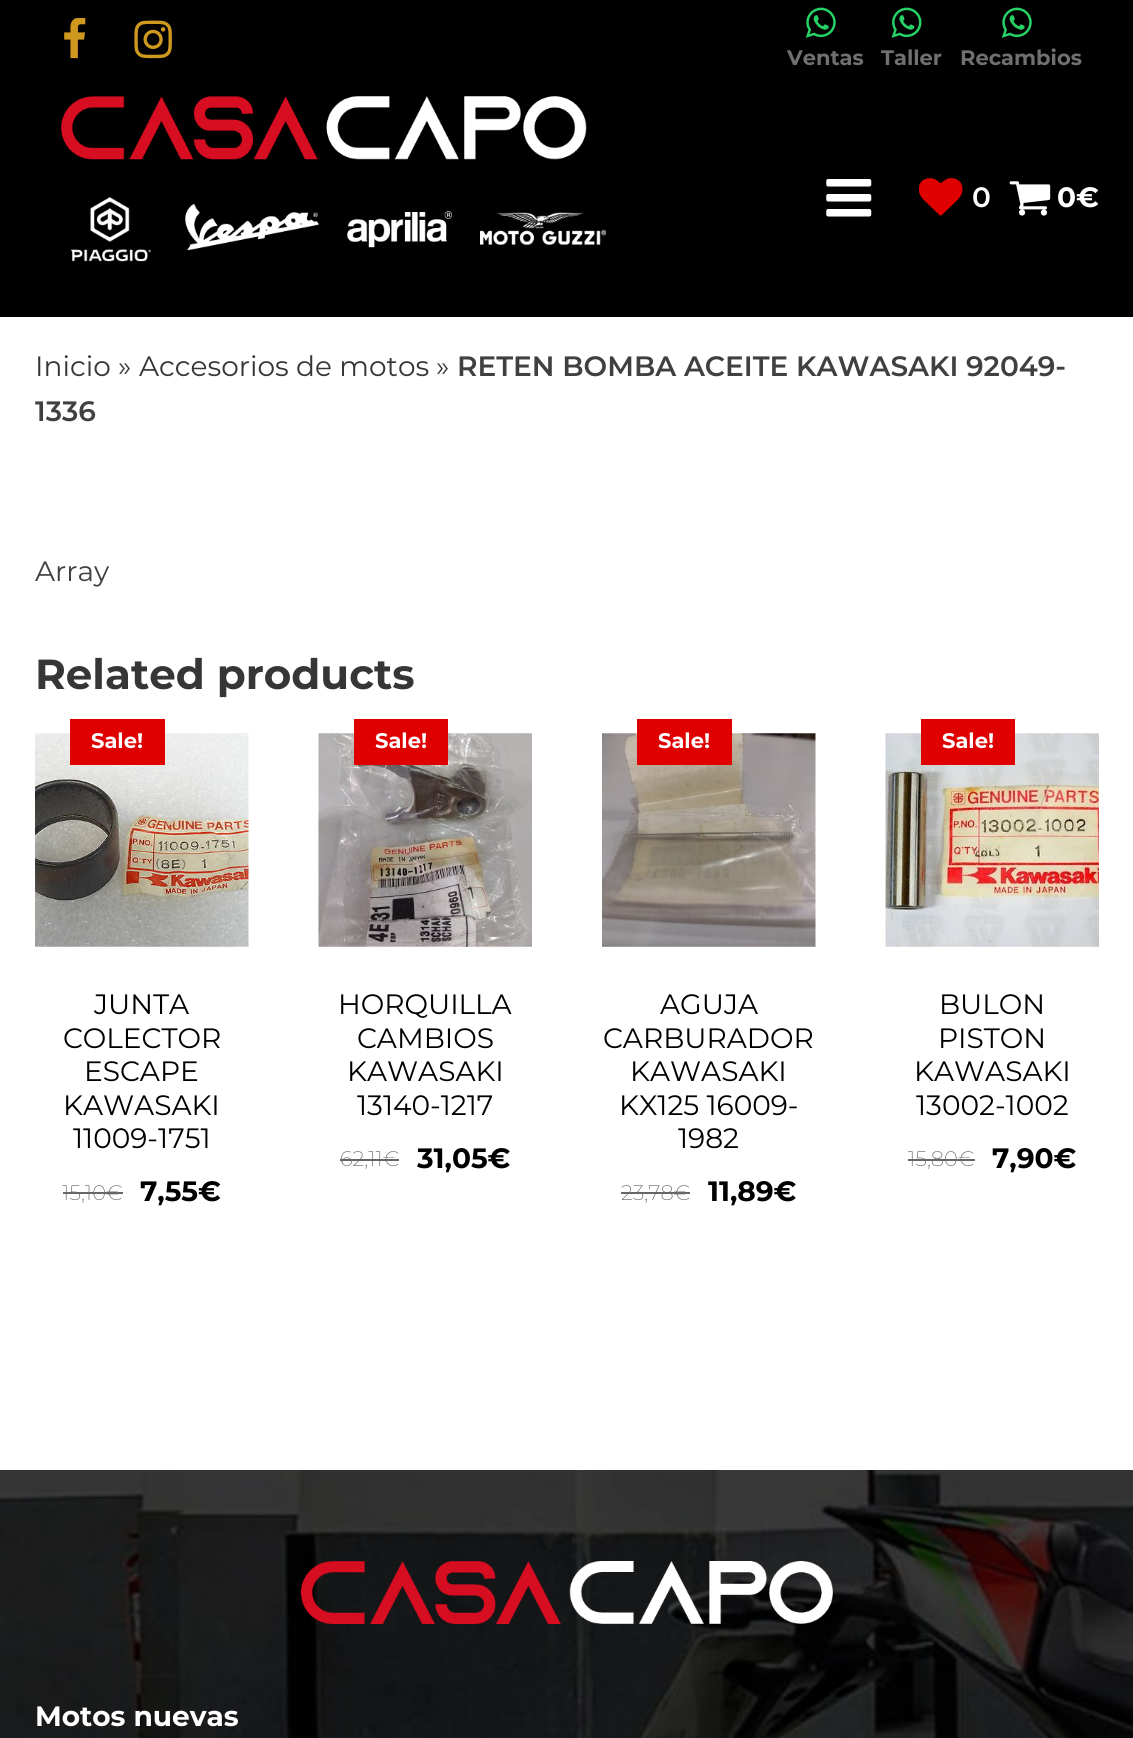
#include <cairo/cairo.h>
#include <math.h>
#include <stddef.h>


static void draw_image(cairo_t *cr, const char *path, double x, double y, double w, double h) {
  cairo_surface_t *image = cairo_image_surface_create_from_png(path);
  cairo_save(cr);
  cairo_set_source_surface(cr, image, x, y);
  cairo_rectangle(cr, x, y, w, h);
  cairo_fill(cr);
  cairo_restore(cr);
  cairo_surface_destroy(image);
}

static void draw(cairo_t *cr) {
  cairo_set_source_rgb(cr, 1, 1, 1);
  cairo_paint(cr);
  cairo_set_source_rgb(cr, 0, 0, 0);
  cairo_rectangle(cr, 0, 0, 1133, 317);
  cairo_fill(cr);
  draw_image(cr, "images/1.png", 64, 18, 22, 41);
  draw_image(cr, "images/2.png", 134, 20, 38, 39);
  draw_image(cr, "images/3.png", 805, 7, 31, 31);
  draw_image(cr, "images/4.png", 891, 7, 31, 31);
  draw_image(cr, "images/3.png", 1001, 7, 31, 31);
  draw_image(cr, "images/5.png", 61, 96, 526, 64);
  draw_image(cr, "images/6.png", 71, 197, 80, 65);
  draw_image(cr, "images/7.png", 185, 204, 134, 47);
  draw_image(cr, "images/8.png", 347, 211, 105, 37);
  draw_image(cr, "images/9.png", 480, 212, 127, 33);
  draw_image(cr, "images/10.png", 826, 179, 46, 38);
  draw_image(cr, "images/11.png", 919, 178, 44, 38);
  draw_image(cr, "images/12.png", 1009, 181, 42, 35);
  draw_image(cr, "images/13.png", 35, 733, 214, 214);
  cairo_set_source_rgb(cr, 223 / 255.0, 0, 0);
  cairo_rectangle(cr, 70, 719, 95, 46);
  cairo_fill(cr);
  cairo_set_source_rgb(cr, 102 / 255.0, 102 / 255.0, 102 / 255.0);
  cairo_rectangle(cr, 63, 1192, 44, 2);
  cairo_fill(cr);
  cairo_rectangle(cr, 107, 1192, 16, 2);
  cairo_fill(cr);
  draw_image(cr, "images/14.png", 318, 733, 214, 214);
  cairo_set_source_rgb(cr, 223 / 255.0, 0, 0);
  cairo_rectangle(cr, 354, 719, 94, 46);
  cairo_fill(cr);
  cairo_set_source_rgb(cr, 102 / 255.0, 102 / 255.0, 102 / 255.0);
  cairo_rectangle(cr, 340, 1159, 59, 2);
  cairo_fill(cr);
  draw_image(cr, "images/15.png", 602, 733, 214, 214);
  cairo_set_source_rgb(cr, 223 / 255.0, 0, 0);
  cairo_rectangle(cr, 637, 719, 95, 46);
  cairo_fill(cr);
  cairo_set_source_rgb(cr, 102 / 255.0, 102 / 255.0, 102 / 255.0);
  cairo_rectangle(cr, 621, 1192, 69, 2);
  cairo_fill(cr);
  draw_image(cr, "images/16.png", 885, 733, 214, 214);
  cairo_set_source_rgb(cr, 223 / 255.0, 0, 0);
  cairo_rectangle(cr, 921, 719, 94, 46);
  cairo_fill(cr);
  cairo_set_source_rgb(cr, 102 / 255.0, 102 / 255.0, 102 / 255.0);
  cairo_rectangle(cr, 908, 1159, 67, 2);
  cairo_fill(cr);
  draw_image(cr, "images/17.png", 0, 1470, 1133, 268);
  draw_image(cr, "images/18.png", 301, 1561, 532, 63);
  cairo_select_font_face(cr, "Montserrat", CAIRO_FONT_SLANT_NORMAL, CAIRO_FONT_WEIGHT_BOLD);
  cairo_set_font_size(cr, 21);
  cairo_set_source_rgb(cr, 112 / 255.0, 112 / 255.0, 112 / 255.0);
  cairo_move_to(cr, 787, 65);
  cairo_show_text(cr, "Ventas");
  cairo_move_to(cr, 881, 65);
  cairo_show_text(cr, "Taller");
  cairo_move_to(cr, 960, 65);
  cairo_show_text(cr, "Recambios");
  cairo_select_font_face(cr, "Montserrat SemiBold", CAIRO_FONT_SLANT_NORMAL, CAIRO_FONT_WEIGHT_NORMAL);
  cairo_set_font_size(cr, 28);
  cairo_set_source_rgb(cr, 1, 1, 1);
  cairo_move_to(cr, 972, 207);
  cairo_show_text(cr, "0");
  cairo_select_font_face(cr, "Montserrat", CAIRO_FONT_SLANT_NORMAL, CAIRO_FONT_WEIGHT_BOLD);
  cairo_move_to(cr, 1057, 207);
  cairo_show_text(cr, "0€");
  cairo_select_font_face(cr, "Montserrat", CAIRO_FONT_SLANT_NORMAL, CAIRO_FONT_WEIGHT_NORMAL);
  cairo_set_source_rgb(cr, 54 / 255.0, 54 / 255.0, 54 / 255.0);
  cairo_move_to(cr, 35, 376);
  cairo_show_text(cr, "Inicio");
  cairo_set_source_rgb(cr, 64 / 255.0, 64 / 255.0, 64 / 255.0);
  cairo_move_to(cr, 118, 376);
  cairo_show_text(cr, "»");
  cairo_set_source_rgb(cr, 54 / 255.0, 54 / 255.0, 54 / 255.0);
  cairo_move_to(cr, 139, 376);
  cairo_show_text(cr, "Accesorios de motos");
  cairo_set_source_rgb(cr, 64 / 255.0, 64 / 255.0, 64 / 255.0);
  cairo_move_to(cr, 436, 376);
  cairo_show_text(cr, "»");
  cairo_select_font_face(cr, "Montserrat SemiBold", CAIRO_FONT_SLANT_NORMAL, CAIRO_FONT_WEIGHT_NORMAL);
  cairo_move_to(cr, 457, 376);
  cairo_show_text(cr, "RETEN BOMBA ACEITE KAWASAKI 92049-");
  cairo_move_to(cr, 35, 421);
  cairo_show_text(cr, "1336");
  cairo_select_font_face(cr, "Montserrat", CAIRO_FONT_SLANT_NORMAL, CAIRO_FONT_WEIGHT_NORMAL);
  cairo_move_to(cr, 35, 581);
  cairo_show_text(cr, "Array");
  cairo_select_font_face(cr, "Montserrat", CAIRO_FONT_SLANT_NORMAL, CAIRO_FONT_WEIGHT_BOLD);
  cairo_set_font_size(cr, 42);
  cairo_set_source_rgb(cr, 54 / 255.0, 54 / 255.0, 54 / 255.0);
  cairo_move_to(cr, 35, 689);
  cairo_show_text(cr, "Related products");
  cairo_set_font_size(cr, 21);
  cairo_set_source_rgb(cr, 1, 1, 1);
  cairo_move_to(cr, 91, 748);
  cairo_show_text(cr, "Sale!");
  cairo_select_font_face(cr, "Montserrat", CAIRO_FONT_SLANT_NORMAL, CAIRO_FONT_WEIGHT_NORMAL);
  cairo_set_font_size(cr, 28);
  cairo_set_source_rgb(cr, 0, 0, 0);
  cairo_move_to(cr, 94, 1014);
  cairo_show_text(cr, "JUNTA");
  cairo_move_to(cr, 63, 1048);
  cairo_show_text(cr, "COLECTOR");
  cairo_move_to(cr, 84, 1081);
  cairo_show_text(cr, "ESCAPE");
  cairo_move_to(cr, 63, 1115);
  cairo_show_text(cr, "KAWASAKI");
  cairo_move_to(cr, 73, 1148);
  cairo_show_text(cr, "11009-1751");
  cairo_select_font_face(cr, "Montserrat ExtraLight", CAIRO_FONT_SLANT_NORMAL, CAIRO_FONT_WEIGHT_NORMAL);
  cairo_set_font_size(cr, 21);
  cairo_set_source_rgb(cr, 102 / 255.0, 102 / 255.0, 102 / 255.0);
  cairo_move_to(cr, 62, 1200);
  cairo_show_text(cr, "15,10");
  cairo_move_to(cr, 106, 1200);
  cairo_show_text(cr, "€");
  cairo_select_font_face(cr, "Montserrat", CAIRO_FONT_SLANT_NORMAL, CAIRO_FONT_WEIGHT_BOLD);
  cairo_set_font_size(cr, 28);
  cairo_set_source_rgb(cr, 0, 0, 0);
  cairo_move_to(cr, 140, 1201);
  cairo_show_text(cr, "7,55€");
  cairo_set_font_size(cr, 21);
  cairo_set_source_rgb(cr, 1, 1, 1);
  cairo_move_to(cr, 375, 748);
  cairo_show_text(cr, "Sale!");
  cairo_select_font_face(cr, "Montserrat", CAIRO_FONT_SLANT_NORMAL, CAIRO_FONT_WEIGHT_NORMAL);
  cairo_set_font_size(cr, 28);
  cairo_set_source_rgb(cr, 0, 0, 0);
  cairo_move_to(cr, 338, 1014);
  cairo_show_text(cr, "HORQUILLA");
  cairo_move_to(cr, 357, 1048);
  cairo_show_text(cr, "CAMBIOS");
  cairo_move_to(cr, 347, 1081);
  cairo_show_text(cr, "KAWASAKI");
  cairo_move_to(cr, 357, 1115);
  cairo_show_text(cr, "13140-1217");
  cairo_select_font_face(cr, "Montserrat ExtraLight", CAIRO_FONT_SLANT_NORMAL, CAIRO_FONT_WEIGHT_NORMAL);
  cairo_set_font_size(cr, 21);
  cairo_set_source_rgb(cr, 102 / 255.0, 102 / 255.0, 102 / 255.0);
  cairo_move_to(cr, 340, 1166);
  cairo_show_text(cr, "62,11€");
  cairo_select_font_face(cr, "Montserrat", CAIRO_FONT_SLANT_NORMAL, CAIRO_FONT_WEIGHT_BOLD);
  cairo_set_font_size(cr, 28);
  cairo_set_source_rgb(cr, 0, 0, 0);
  cairo_move_to(cr, 417, 1168);
  cairo_show_text(cr, "31,05€");
  cairo_set_font_size(cr, 21);
  cairo_set_source_rgb(cr, 1, 1, 1);
  cairo_move_to(cr, 658, 748);
  cairo_show_text(cr, "Sale!");
  cairo_select_font_face(cr, "Montserrat", CAIRO_FONT_SLANT_NORMAL, CAIRO_FONT_WEIGHT_NORMAL);
  cairo_set_font_size(cr, 28);
  cairo_set_source_rgb(cr, 0, 0, 0);
  cairo_move_to(cr, 660, 1014);
  cairo_show_text(cr, "AGUJA");
  cairo_move_to(cr, 603, 1048);
  cairo_show_text(cr, "CARBURADOR");
  cairo_move_to(cr, 630, 1081);
  cairo_show_text(cr, "KAWASAKI");
  cairo_move_to(cr, 619, 1115);
  cairo_show_text(cr, "KX125 16009-");
  cairo_move_to(cr, 678, 1148);
  cairo_show_text(cr, "1982");
  cairo_select_font_face(cr, "Montserrat ExtraLight", CAIRO_FONT_SLANT_NORMAL, CAIRO_FONT_WEIGHT_NORMAL);
  cairo_set_font_size(cr, 21);
  cairo_set_source_rgb(cr, 102 / 255.0, 102 / 255.0, 102 / 255.0);
  cairo_move_to(cr, 621, 1200);
  cairo_show_text(cr, "23,78€");
  cairo_select_font_face(cr, "Montserrat", CAIRO_FONT_SLANT_NORMAL, CAIRO_FONT_WEIGHT_BOLD);
  cairo_set_font_size(cr, 28);
  cairo_set_source_rgb(cr, 0, 0, 0);
  cairo_move_to(cr, 708, 1201);
  cairo_show_text(cr, "11,89€");
  cairo_set_font_size(cr, 21);
  cairo_set_source_rgb(cr, 1, 1, 1);
  cairo_move_to(cr, 942, 748);
  cairo_show_text(cr, "Sale!");
  cairo_select_font_face(cr, "Montserrat", CAIRO_FONT_SLANT_NORMAL, CAIRO_FONT_WEIGHT_NORMAL);
  cairo_set_font_size(cr, 28);
  cairo_set_source_rgb(cr, 0, 0, 0);
  cairo_move_to(cr, 939, 1014);
  cairo_show_text(cr, "BULON");
  cairo_move_to(cr, 938, 1048);
  cairo_show_text(cr, "PISTON");
  cairo_move_to(cr, 914, 1081);
  cairo_show_text(cr, "KAWASAKI");
  cairo_move_to(cr, 916, 1115);
  cairo_show_text(cr, "13002-1002");
  cairo_select_font_face(cr, "Montserrat ExtraLight", CAIRO_FONT_SLANT_NORMAL, CAIRO_FONT_WEIGHT_NORMAL);
  cairo_set_font_size(cr, 21);
  cairo_set_source_rgb(cr, 102 / 255.0, 102 / 255.0, 102 / 255.0);
  cairo_move_to(cr, 908, 1166);
  cairo_show_text(cr, "15,80€");
  cairo_select_font_face(cr, "Montserrat", CAIRO_FONT_SLANT_NORMAL, CAIRO_FONT_WEIGHT_BOLD);
  cairo_set_font_size(cr, 28);
  cairo_set_source_rgb(cr, 0, 0, 0);
  cairo_move_to(cr, 992, 1168);
  cairo_show_text(cr, "7,90€");
  cairo_set_source_rgb(cr, 1, 1, 1);
  cairo_move_to(cr, 35, 1726);
  cairo_show_text(cr, "Motos nuevas");
}

int main(void) {
  cairo_surface_t *surface = cairo_image_surface_create(CAIRO_FORMAT_RGB24, 1133, 1738);
  cairo_t *cr = cairo_create(surface);
  cairo_font_options_t *options = cairo_font_options_create();
  cairo_font_options_set_hint_metrics(options, CAIRO_HINT_METRICS_OFF);
  cairo_font_options_set_hint_style(options, CAIRO_HINT_STYLE_NONE);
  cairo_set_font_options(cr, options);
  cairo_set_miter_limit(cr, 4);
  draw(cr);
  cairo_surface_write_to_png(surface, "out.png");
  cairo_font_options_destroy(options);
  cairo_destroy(cr);
  cairo_surface_destroy(surface);
  return 0;
}
